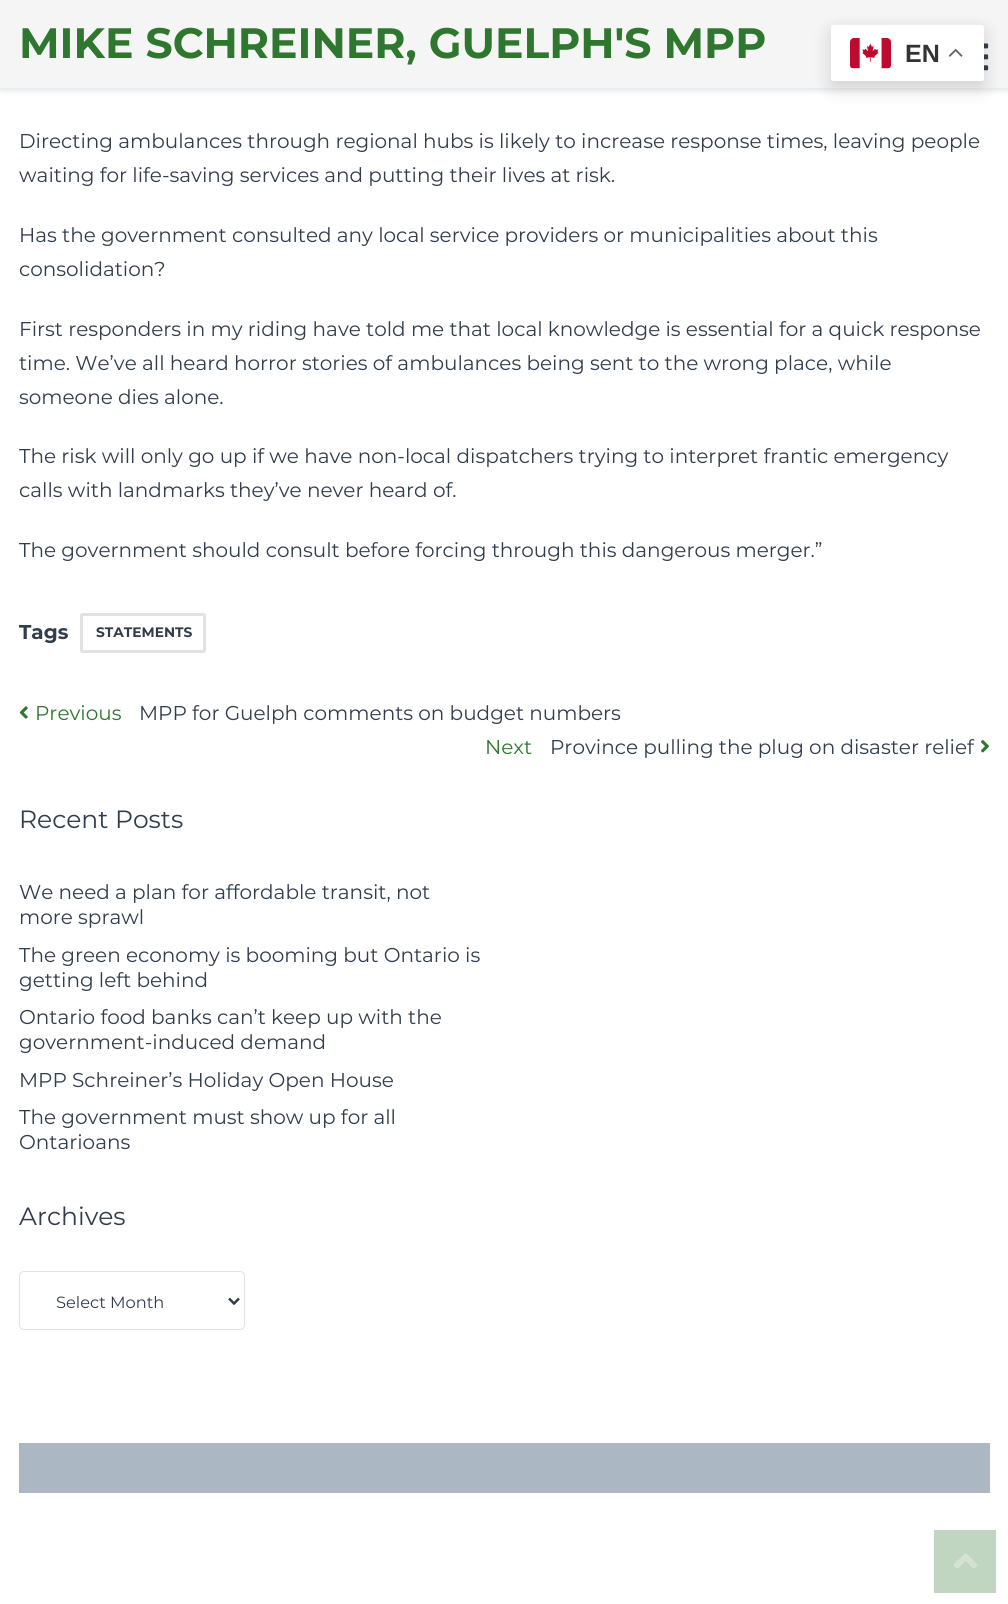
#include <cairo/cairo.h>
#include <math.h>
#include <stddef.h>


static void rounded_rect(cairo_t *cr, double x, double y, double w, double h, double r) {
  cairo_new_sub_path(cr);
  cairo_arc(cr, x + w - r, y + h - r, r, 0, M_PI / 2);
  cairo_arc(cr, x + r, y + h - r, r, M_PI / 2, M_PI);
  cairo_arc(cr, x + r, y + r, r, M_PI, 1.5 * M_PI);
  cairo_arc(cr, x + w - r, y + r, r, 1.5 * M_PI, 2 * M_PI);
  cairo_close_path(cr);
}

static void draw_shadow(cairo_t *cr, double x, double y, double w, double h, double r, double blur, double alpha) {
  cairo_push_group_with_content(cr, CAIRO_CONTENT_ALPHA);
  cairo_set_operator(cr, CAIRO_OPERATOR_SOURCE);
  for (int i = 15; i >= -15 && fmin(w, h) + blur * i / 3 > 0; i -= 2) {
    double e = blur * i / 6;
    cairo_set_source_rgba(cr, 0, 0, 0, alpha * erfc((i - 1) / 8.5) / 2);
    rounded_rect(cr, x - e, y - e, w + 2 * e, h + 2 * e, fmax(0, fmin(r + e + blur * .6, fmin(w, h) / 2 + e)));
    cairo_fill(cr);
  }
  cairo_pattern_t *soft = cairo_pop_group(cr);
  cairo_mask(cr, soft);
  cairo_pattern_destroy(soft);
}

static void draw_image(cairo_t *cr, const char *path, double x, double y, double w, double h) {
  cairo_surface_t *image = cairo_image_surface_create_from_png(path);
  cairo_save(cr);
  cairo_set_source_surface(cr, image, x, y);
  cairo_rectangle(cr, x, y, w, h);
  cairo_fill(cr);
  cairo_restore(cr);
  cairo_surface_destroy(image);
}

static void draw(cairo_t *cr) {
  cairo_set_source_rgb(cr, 1, 1, 1);
  cairo_paint(cr);
  cairo_set_source_rgb(cr, 224 / 255.0, 226 / 255.0, 228 / 255.0);
  draw_shadow(cr, 0, 3, 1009, 87, 0, 3, 1);
  cairo_set_source_rgb(cr, 245 / 255.0, 245 / 255.0, 245 / 255.0);
  cairo_rectangle(cr, 0, 0, 1008, 88);
  cairo_fill(cr);
  draw_image(cr, "images/1.png", 984, 43, 5, 28);
  rounded_rect(cr, 81.5, 614.5, 123, 37, 1);
  cairo_set_source_rgb(cr, 224 / 255.0, 226 / 255.0, 228 / 255.0);
  cairo_set_line_width(cr, 3);
  cairo_stroke(cr);
  draw_image(cr, "images/2.png", 19, 706, 9, 13);
  draw_image(cr, "images/3.png", 981, 740, 8, 13);
  rounded_rect(cr, 19.5, 1271.5, 225, 58, 4.5);
  cairo_set_line_width(cr, 1);
  cairo_stroke(cr);
  cairo_new_path(cr);
  cairo_move_to(cr, 229, 1298.5);
  cairo_line_to(cr, 234, 1303.5);
  cairo_line_to(cr, 239, 1298.5);
  cairo_set_source_rgb(cr, 50 / 255.0, 61 / 255.0, 76 / 255.0);
  cairo_set_line_width(cr, 2.5);
  cairo_stroke(cr);
  cairo_set_source_rgb(cr, 171 / 255.0, 184 / 255.0, 195 / 255.0);
  cairo_rectangle(cr, 19, 1443, 971, 50);
  cairo_fill(cr);
  cairo_set_source_rgb(cr, 193 / 255.0, 214 / 255.0, 193 / 255.0);
  cairo_rectangle(cr, 934, 1530, 62, 63);
  cairo_fill(cr);
  draw_image(cr, "images/4.png", 954, 1553, 23, 16);
  cairo_set_source_rgb(cr, 0, 0, 0);
  draw_shadow(cr, 831, 31, 153, 57, 2.5, 9.5, 0.15);
  cairo_set_source_rgb(cr, 1, 1, 1);
  rounded_rect(cr, 831, 25, 153, 56, 2.5);
  cairo_fill(cr);
  draw_image(cr, "images/5.png", 850, 38, 41, 31);
  draw_image(cr, "images/6.png", 949, 48, 14, 9);
  cairo_select_font_face(cr, "Montserrat", CAIRO_FONT_SLANT_NORMAL, CAIRO_FONT_WEIGHT_BOLD);
  cairo_set_font_size(cr, 42.5);
  cairo_set_source_rgb(cr, 47 / 255.0, 119 / 255.0, 47 / 255.0);
  cairo_move_to(cr, 19, 58);
  cairo_show_text(cr, "MIKE SCHREINER, GUELPH'S MPP");
  cairo_select_font_face(cr, "Montserrat", CAIRO_FONT_SLANT_NORMAL, CAIRO_FONT_WEIGHT_NORMAL);
  cairo_set_font_size(cr, 20);
  cairo_set_source_rgb(cr, 50 / 255.0, 61 / 255.0, 76 / 255.0);
  cairo_move_to(cr, 19, 148);
  cairo_show_text(cr, "Directing ambulances through regional hubs is likely to increase response times, leaving people");
  cairo_move_to(cr, 19, 182);
  cairo_show_text(cr, "waiting for life-saving services and putting their lives at risk.");
  cairo_move_to(cr, 19, 242);
  cairo_show_text(cr, "Has the government consulted any local service providers or municipalities about this");
  cairo_move_to(cr, 19, 276);
  cairo_show_text(cr, "consolidation?");
  cairo_move_to(cr, 19, 336);
  cairo_show_text(cr, "First responders in my riding have told me that local knowledge is essential for a quick response");
  cairo_move_to(cr, 19, 370);
  cairo_show_text(cr, "time. We’ve all heard horror stories of ambulances being sent to the wrong place, while");
  cairo_move_to(cr, 19, 404);
  cairo_show_text(cr, "someone dies alone.");
  cairo_move_to(cr, 19, 463);
  cairo_show_text(cr, "The risk will only go up if we have non-local dispatchers trying to interpret frantic emergency");
  cairo_move_to(cr, 19, 497);
  cairo_show_text(cr, "calls with landmarks they’ve never heard of.");
  cairo_move_to(cr, 19, 557);
  cairo_show_text(cr, "The government should consult before forcing through this dangerous merger.”");
  cairo_select_font_face(cr, "Montserrat", CAIRO_FONT_SLANT_NORMAL, CAIRO_FONT_WEIGHT_BOLD);
  cairo_move_to(cr, 19, 639);
  cairo_show_text(cr, "Tags");
  cairo_set_font_size(cr, 13.75);
  cairo_move_to(cr, 96, 637);
  cairo_show_text(cr, "STATEMENTS");
  cairo_select_font_face(cr, "Montserrat", CAIRO_FONT_SLANT_NORMAL, CAIRO_FONT_WEIGHT_NORMAL);
  cairo_set_font_size(cr, 20);
  cairo_set_source_rgb(cr, 47 / 255.0, 119 / 255.0, 47 / 255.0);
  cairo_move_to(cr, 35, 720);
  cairo_show_text(cr, "Previous");
  cairo_set_source_rgb(cr, 50 / 255.0, 61 / 255.0, 76 / 255.0);
  cairo_move_to(cr, 139, 720);
  cairo_show_text(cr, "MPP for Guelph comments on budget numbers");
  cairo_set_source_rgb(cr, 47 / 255.0, 119 / 255.0, 47 / 255.0);
  cairo_move_to(cr, 485, 754);
  cairo_show_text(cr, "Next");
  cairo_set_source_rgb(cr, 50 / 255.0, 61 / 255.0, 76 / 255.0);
  cairo_move_to(cr, 550, 754);
  cairo_show_text(cr, "Province pulling the plug on disaster relief");
  cairo_set_font_size(cr, 25);
  cairo_move_to(cr, 19, 828);
  cairo_show_text(cr, "Recent Posts");
  cairo_set_font_size(cr, 20);
  cairo_move_to(cr, 19, 899);
  cairo_show_text(cr, "We need a plan for affordable transit, not");
  cairo_move_to(cr, 19, 924);
  cairo_show_text(cr, "more sprawl");
  cairo_move_to(cr, 19, 962);
  cairo_show_text(cr, "The green economy is booming but Ontario is");
  cairo_move_to(cr, 19, 987);
  cairo_show_text(cr, "getting left behind");
  cairo_move_to(cr, 19, 1024);
  cairo_show_text(cr, "Ontario food banks can’t keep up with the");
  cairo_move_to(cr, 19, 1049);
  cairo_show_text(cr, "government-induced demand");
  cairo_move_to(cr, 19, 1087);
  cairo_show_text(cr, "MPP Schreiner’s Holiday Open House");
  cairo_move_to(cr, 19, 1124);
  cairo_show_text(cr, "The government must show up for all");
  cairo_move_to(cr, 19, 1149);
  cairo_show_text(cr, "Ontarioans");
  cairo_set_font_size(cr, 25);
  cairo_move_to(cr, 19, 1225);
  cairo_show_text(cr, "Archives");
  cairo_set_font_size(cr, 16.25);
  cairo_move_to(cr, 56, 1308);
  cairo_show_text(cr, "Select Month");
  cairo_select_font_face(cr, "Liberation Sans", CAIRO_FONT_SLANT_NORMAL, CAIRO_FONT_WEIGHT_BOLD);
  cairo_set_font_size(cr, 25);
  cairo_set_source_rgb(cr, 51 / 255.0, 51 / 255.0, 51 / 255.0);
  cairo_move_to(cr, 905, 62);
  cairo_show_text(cr, "EN");
}

int main(void) {
  cairo_surface_t *surface = cairo_image_surface_create(CAIRO_FORMAT_RGB24, 1008, 1604);
  cairo_t *cr = cairo_create(surface);
  cairo_font_options_t *options = cairo_font_options_create();
  cairo_font_options_set_hint_metrics(options, CAIRO_HINT_METRICS_OFF);
  cairo_font_options_set_hint_style(options, CAIRO_HINT_STYLE_NONE);
  cairo_set_font_options(cr, options);
  cairo_set_miter_limit(cr, 4);
  draw(cr);
  cairo_surface_write_to_png(surface, "out.png");
  cairo_font_options_destroy(options);
  cairo_destroy(cr);
  cairo_surface_destroy(surface);
  return 0;
}
